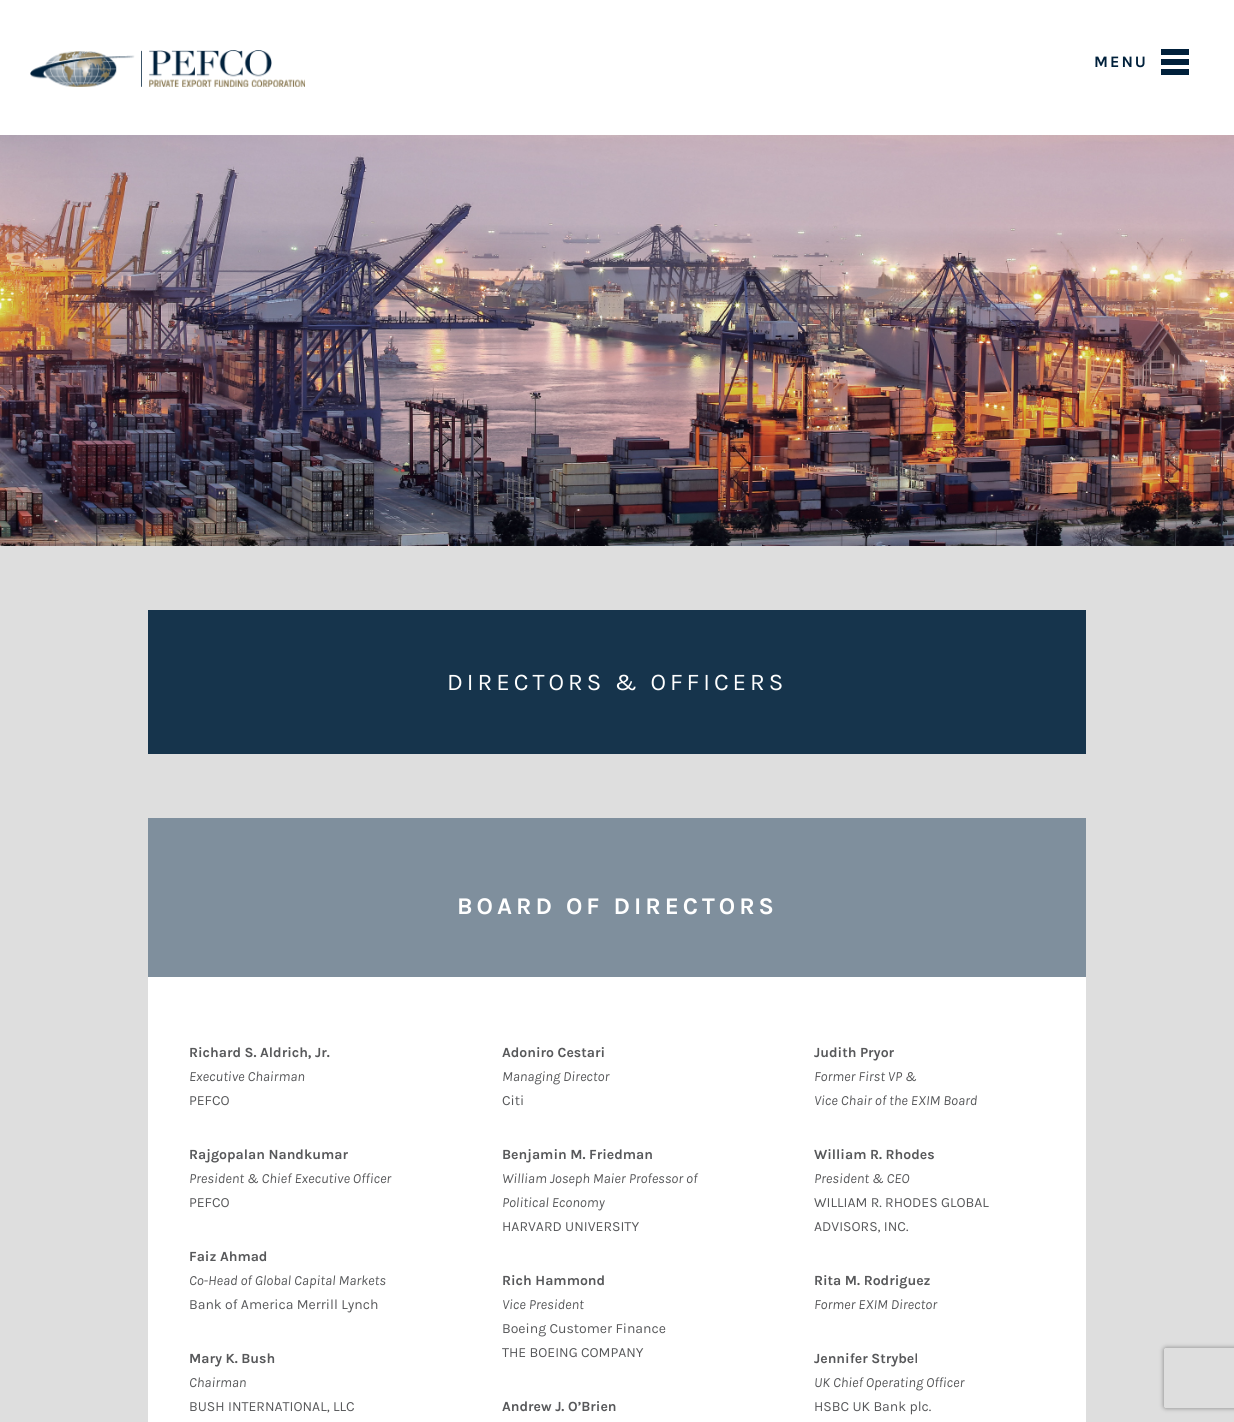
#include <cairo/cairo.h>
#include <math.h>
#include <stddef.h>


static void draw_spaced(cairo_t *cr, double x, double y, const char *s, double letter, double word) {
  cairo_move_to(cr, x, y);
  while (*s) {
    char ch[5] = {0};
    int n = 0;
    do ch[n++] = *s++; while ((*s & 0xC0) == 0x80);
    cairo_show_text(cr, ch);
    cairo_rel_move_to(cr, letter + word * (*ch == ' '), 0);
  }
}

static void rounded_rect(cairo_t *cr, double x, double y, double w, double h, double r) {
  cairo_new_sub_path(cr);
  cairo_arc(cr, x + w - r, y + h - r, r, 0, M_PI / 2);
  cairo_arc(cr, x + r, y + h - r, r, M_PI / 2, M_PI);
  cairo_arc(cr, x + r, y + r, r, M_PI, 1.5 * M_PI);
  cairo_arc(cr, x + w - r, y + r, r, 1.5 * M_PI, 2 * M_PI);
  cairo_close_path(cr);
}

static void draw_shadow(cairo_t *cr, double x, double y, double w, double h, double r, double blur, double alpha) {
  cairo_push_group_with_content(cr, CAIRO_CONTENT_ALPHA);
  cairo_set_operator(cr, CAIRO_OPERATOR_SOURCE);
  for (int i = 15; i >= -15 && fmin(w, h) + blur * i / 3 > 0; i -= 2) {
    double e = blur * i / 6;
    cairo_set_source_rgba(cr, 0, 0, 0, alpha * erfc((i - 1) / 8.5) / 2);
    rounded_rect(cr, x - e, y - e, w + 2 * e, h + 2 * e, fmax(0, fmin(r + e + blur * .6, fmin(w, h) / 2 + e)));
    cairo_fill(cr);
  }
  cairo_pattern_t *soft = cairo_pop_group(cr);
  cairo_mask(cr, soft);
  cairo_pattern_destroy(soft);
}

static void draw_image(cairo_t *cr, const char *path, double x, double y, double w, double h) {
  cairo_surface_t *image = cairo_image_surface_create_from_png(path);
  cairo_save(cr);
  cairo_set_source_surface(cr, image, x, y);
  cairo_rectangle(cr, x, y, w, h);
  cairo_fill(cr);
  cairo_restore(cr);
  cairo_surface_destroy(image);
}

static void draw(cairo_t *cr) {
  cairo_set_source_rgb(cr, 222 / 255.0, 222 / 255.0, 222 / 255.0);
  cairo_paint(cr);
  cairo_set_source_rgb(cr, 1, 1, 1);
  cairo_rectangle(cr, 0, 0, 1234, 135);
  cairo_fill(cr);
  draw_image(cr, "images/1.png", 30, 50, 275, 37);
  cairo_set_source_rgb(cr, 0, 32 / 255.0, 59 / 255.0);
  cairo_rectangle(cr, 1161, 49, 28, 6);
  cairo_fill(cr);
  cairo_rectangle(cr, 1161, 59, 28, 6);
  cairo_fill(cr);
  cairo_rectangle(cr, 1161, 69, 28, 6);
  cairo_fill(cr);
  draw_image(cr, "images/2.png", 0, 135, 1234, 411);
  cairo_set_source_rgb(cr, 22 / 255.0, 52 / 255.0, 76 / 255.0);
  cairo_rectangle(cr, 148, 610, 938, 144);
  cairo_fill(cr);
  cairo_set_source_rgb(cr, 127 / 255.0, 143 / 255.0, 157 / 255.0);
  cairo_rectangle(cr, 148, 818, 938, 159);
  cairo_fill(cr);
  cairo_set_source_rgb(cr, 1, 1, 1);
  cairo_rectangle(cr, 148, 977, 938, 445);
  cairo_fill(cr);
  cairo_save(cr);
  cairo_set_fill_rule(cr, CAIRO_FILL_RULE_EVEN_ODD);
  cairo_new_path(cr);
  cairo_move_to(cr, 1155, 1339);
  cairo_line_to(cr, 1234, 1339);
  cairo_line_to(cr, 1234, 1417);
  cairo_line_to(cr, 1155, 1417);
  cairo_close_path(cr);
  cairo_move_to(cr, 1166, 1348);
  cairo_line_to(cr, 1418, 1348);
  cairo_curve_to(cr, 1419, 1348, 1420, 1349, 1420, 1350);
  cairo_line_to(cr, 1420, 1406);
  cairo_curve_to(cr, 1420, 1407, 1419, 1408, 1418, 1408);
  cairo_line_to(cr, 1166, 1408);
  cairo_curve_to(cr, 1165, 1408, 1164, 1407, 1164, 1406);
  cairo_line_to(cr, 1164, 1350);
  cairo_curve_to(cr, 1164, 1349, 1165, 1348, 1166, 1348);
  cairo_close_path(cr);
  cairo_clip(cr);
  cairo_set_source_rgb(cr, 128 / 255.0, 128 / 255.0, 128 / 255.0);
  draw_shadow(cr, 1164, 1348, 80, 60, 2, 2.5, 1);
  cairo_restore(cr);
  cairo_select_font_face(cr, "Karla", CAIRO_FONT_SLANT_NORMAL, CAIRO_FONT_WEIGHT_BOLD);
  cairo_set_font_size(cr, 16);
  cairo_set_source_rgb(cr, 0, 32 / 255.0, 59 / 255.0);
  draw_spaced(cr, 1094, 67, "MENU", 2, 0);
  cairo_select_font_face(cr, "Karla", CAIRO_FONT_SLANT_NORMAL, CAIRO_FONT_WEIGHT_NORMAL);
  cairo_set_font_size(cr, 24);
  cairo_set_source_rgb(cr, 1, 1, 1);
  draw_spaced(cr, 447, 690, "DIRECTORS & OFFICERS", 4, 0);
  cairo_select_font_face(cr, "Karla", CAIRO_FONT_SLANT_NORMAL, CAIRO_FONT_WEIGHT_BOLD);
  draw_spaced(cr, 457, 914, "BOARD OF DIRECTORS", 4, 0);
  cairo_set_font_size(cr, 14);
  cairo_set_source_rgb(cr, 87 / 255.0, 88 / 255.0, 90 / 255.0);
  cairo_move_to(cr, 189, 1057);
  cairo_show_text(cr, "Richard S. Aldrich, Jr.");
  cairo_select_font_face(cr, "Karla", CAIRO_FONT_SLANT_ITALIC, CAIRO_FONT_WEIGHT_NORMAL);
  cairo_move_to(cr, 189, 1081);
  cairo_show_text(cr, "Executive Chairman");
  cairo_select_font_face(cr, "Karla", CAIRO_FONT_SLANT_NORMAL, CAIRO_FONT_WEIGHT_NORMAL);
  cairo_move_to(cr, 189, 1105);
  cairo_show_text(cr, "PEFCO");
  cairo_select_font_face(cr, "Karla", CAIRO_FONT_SLANT_NORMAL, CAIRO_FONT_WEIGHT_BOLD);
  cairo_move_to(cr, 189, 1159);
  cairo_show_text(cr, "Rajgopalan Nandkumar");
  cairo_select_font_face(cr, "Karla", CAIRO_FONT_SLANT_ITALIC, CAIRO_FONT_WEIGHT_NORMAL);
  cairo_move_to(cr, 189, 1183);
  cairo_show_text(cr, "President & Chief Executive Officer");
  cairo_select_font_face(cr, "Karla", CAIRO_FONT_SLANT_NORMAL, CAIRO_FONT_WEIGHT_NORMAL);
  cairo_move_to(cr, 189, 1207);
  cairo_show_text(cr, "PEFCO");
  cairo_select_font_face(cr, "Karla", CAIRO_FONT_SLANT_NORMAL, CAIRO_FONT_WEIGHT_BOLD);
  cairo_move_to(cr, 189, 1261);
  cairo_show_text(cr, "Faiz Ahmad");
  cairo_select_font_face(cr, "Karla", CAIRO_FONT_SLANT_ITALIC, CAIRO_FONT_WEIGHT_NORMAL);
  cairo_move_to(cr, 189, 1285);
  cairo_show_text(cr, "Co-Head of Global Capital Markets");
  cairo_select_font_face(cr, "Karla", CAIRO_FONT_SLANT_NORMAL, CAIRO_FONT_WEIGHT_NORMAL);
  cairo_move_to(cr, 189, 1309);
  cairo_show_text(cr, "Bank of America Merrill Lynch");
  cairo_select_font_face(cr, "Karla", CAIRO_FONT_SLANT_NORMAL, CAIRO_FONT_WEIGHT_BOLD);
  cairo_move_to(cr, 189, 1363);
  cairo_show_text(cr, "Mary K. Bush");
  cairo_select_font_face(cr, "Karla", CAIRO_FONT_SLANT_ITALIC, CAIRO_FONT_WEIGHT_NORMAL);
  cairo_move_to(cr, 189, 1387);
  cairo_show_text(cr, "Chairman");
  cairo_select_font_face(cr, "Karla", CAIRO_FONT_SLANT_NORMAL, CAIRO_FONT_WEIGHT_NORMAL);
  cairo_move_to(cr, 189, 1411);
  cairo_show_text(cr, "BUSH INTERNATIONAL, LLC");
  cairo_select_font_face(cr, "Karla", CAIRO_FONT_SLANT_NORMAL, CAIRO_FONT_WEIGHT_BOLD);
  cairo_move_to(cr, 502, 1057);
  cairo_show_text(cr, "Adoniro Cestari");
  cairo_select_font_face(cr, "Karla", CAIRO_FONT_SLANT_ITALIC, CAIRO_FONT_WEIGHT_NORMAL);
  cairo_move_to(cr, 502, 1081);
  cairo_show_text(cr, "Managing Director");
  cairo_select_font_face(cr, "Karla", CAIRO_FONT_SLANT_NORMAL, CAIRO_FONT_WEIGHT_NORMAL);
  cairo_move_to(cr, 502, 1105);
  cairo_show_text(cr, "Citi");
  cairo_select_font_face(cr, "Karla", CAIRO_FONT_SLANT_NORMAL, CAIRO_FONT_WEIGHT_BOLD);
  cairo_move_to(cr, 502, 1159);
  cairo_show_text(cr, "Benjamin M. Friedman");
  cairo_select_font_face(cr, "Karla", CAIRO_FONT_SLANT_ITALIC, CAIRO_FONT_WEIGHT_NORMAL);
  cairo_move_to(cr, 502, 1183);
  cairo_show_text(cr, "William Joseph Maier Professor of");
  cairo_move_to(cr, 502, 1207);
  cairo_show_text(cr, "Political Economy");
  cairo_select_font_face(cr, "Karla", CAIRO_FONT_SLANT_NORMAL, CAIRO_FONT_WEIGHT_NORMAL);
  cairo_move_to(cr, 502, 1231);
  cairo_show_text(cr, "HARVARD UNIVERSITY");
  cairo_select_font_face(cr, "Karla", CAIRO_FONT_SLANT_NORMAL, CAIRO_FONT_WEIGHT_BOLD);
  cairo_move_to(cr, 502, 1285);
  cairo_show_text(cr, "Rich Hammond");
  cairo_select_font_face(cr, "Karla", CAIRO_FONT_SLANT_ITALIC, CAIRO_FONT_WEIGHT_NORMAL);
  cairo_move_to(cr, 502, 1309);
  cairo_show_text(cr, "Vice President");
  cairo_select_font_face(cr, "Karla", CAIRO_FONT_SLANT_NORMAL, CAIRO_FONT_WEIGHT_NORMAL);
  cairo_move_to(cr, 502, 1333);
  cairo_show_text(cr, "Boeing Customer Finance");
  cairo_move_to(cr, 502, 1357);
  cairo_show_text(cr, "THE BOEING COMPANY");
  cairo_select_font_face(cr, "Karla", CAIRO_FONT_SLANT_NORMAL, CAIRO_FONT_WEIGHT_BOLD);
  cairo_move_to(cr, 502, 1411);
  cairo_show_text(cr, "Andrew J. O’Brien");
  cairo_move_to(cr, 814, 1057);
  cairo_show_text(cr, "Judith Pryor");
  cairo_select_font_face(cr, "Karla", CAIRO_FONT_SLANT_ITALIC, CAIRO_FONT_WEIGHT_NORMAL);
  cairo_move_to(cr, 814, 1081);
  cairo_show_text(cr, "Former First VP &");
  cairo_move_to(cr, 814, 1105);
  cairo_show_text(cr, "Vice Chair of the EXIM Board");
  cairo_select_font_face(cr, "Karla", CAIRO_FONT_SLANT_NORMAL, CAIRO_FONT_WEIGHT_BOLD);
  cairo_move_to(cr, 814, 1159);
  cairo_show_text(cr, "William R. Rhodes");
  cairo_select_font_face(cr, "Karla", CAIRO_FONT_SLANT_ITALIC, CAIRO_FONT_WEIGHT_NORMAL);
  cairo_move_to(cr, 814, 1183);
  cairo_show_text(cr, "President & CEO");
  cairo_select_font_face(cr, "Karla", CAIRO_FONT_SLANT_NORMAL, CAIRO_FONT_WEIGHT_NORMAL);
  cairo_move_to(cr, 814, 1207);
  cairo_show_text(cr, "WILLIAM R. RHODES GLOBAL");
  cairo_move_to(cr, 814, 1231);
  cairo_show_text(cr, "ADVISORS, INC.");
  cairo_select_font_face(cr, "Karla", CAIRO_FONT_SLANT_NORMAL, CAIRO_FONT_WEIGHT_BOLD);
  cairo_move_to(cr, 814, 1285);
  cairo_show_text(cr, "Rita M. Rodriguez");
  cairo_select_font_face(cr, "Karla", CAIRO_FONT_SLANT_ITALIC, CAIRO_FONT_WEIGHT_NORMAL);
  cairo_move_to(cr, 814, 1309);
  cairo_show_text(cr, "Former EXIM Director");
  cairo_select_font_face(cr, "Karla", CAIRO_FONT_SLANT_NORMAL, CAIRO_FONT_WEIGHT_BOLD);
  cairo_move_to(cr, 814, 1363);
  cairo_show_text(cr, "Jennifer Strybel");
  cairo_select_font_face(cr, "Karla", CAIRO_FONT_SLANT_ITALIC, CAIRO_FONT_WEIGHT_NORMAL);
  cairo_move_to(cr, 814, 1387);
  cairo_show_text(cr, "UK Chief Operating Officer");
  cairo_select_font_face(cr, "Karla", CAIRO_FONT_SLANT_NORMAL, CAIRO_FONT_WEIGHT_NORMAL);
  cairo_move_to(cr, 814, 1411);
  cairo_show_text(cr, "HSBC UK Bank plc.");
}

int main(void) {
  cairo_surface_t *surface = cairo_image_surface_create(CAIRO_FORMAT_RGB24, 1234, 1422);
  cairo_t *cr = cairo_create(surface);
  cairo_font_options_t *options = cairo_font_options_create();
  cairo_font_options_set_hint_metrics(options, CAIRO_HINT_METRICS_OFF);
  cairo_font_options_set_hint_style(options, CAIRO_HINT_STYLE_NONE);
  cairo_set_font_options(cr, options);
  cairo_set_miter_limit(cr, 4);
  draw(cr);
  cairo_surface_write_to_png(surface, "out.png");
  cairo_font_options_destroy(options);
  cairo_destroy(cr);
  cairo_surface_destroy(surface);
  return 0;
}
